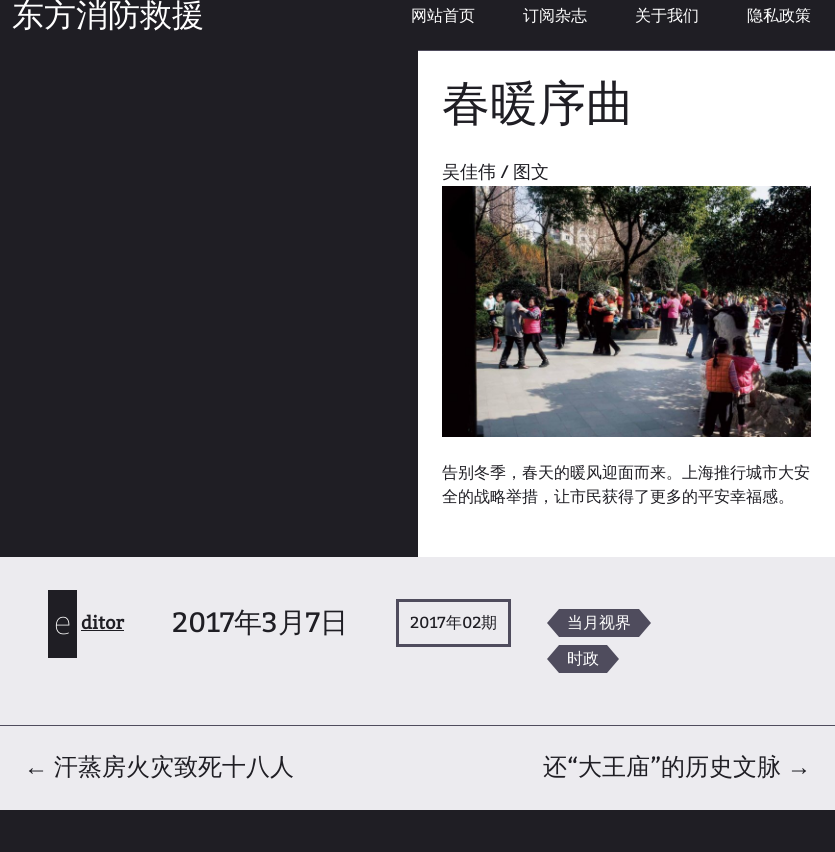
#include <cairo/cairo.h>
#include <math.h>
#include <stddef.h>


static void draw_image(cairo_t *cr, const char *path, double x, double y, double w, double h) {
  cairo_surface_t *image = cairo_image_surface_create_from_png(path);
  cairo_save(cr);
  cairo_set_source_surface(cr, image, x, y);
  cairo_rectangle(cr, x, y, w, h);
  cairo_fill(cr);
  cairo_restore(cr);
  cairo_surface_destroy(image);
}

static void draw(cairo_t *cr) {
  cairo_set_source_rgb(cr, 1, 1, 1);
  cairo_paint(cr);
  cairo_set_source_rgb(cr, 31 / 255.0, 30 / 255.0, 36 / 255.0);
  cairo_rectangle(cr, 0, 0, 835, 50);
  cairo_fill(cr);
  cairo_set_source_rgb(cr, 79 / 255.0, 76 / 255.0, 93 / 255.0);
  cairo_rectangle(cr, 418, 50, 417, 1);
  cairo_fill(cr);
  cairo_set_source_rgb(cr, 31 / 255.0, 30 / 255.0, 36 / 255.0);
  cairo_rectangle(cr, 0, 50, 418, 507);
  cairo_fill(cr);
  draw_image(cr, "images/1.png", 442, 186, 369, 251);
  cairo_set_source_rgb(cr, 236 / 255.0, 235 / 255.0, 239 / 255.0);
  cairo_rectangle(cr, 0, 557, 835, 168);
  cairo_fill(cr);
  cairo_set_source_rgb(cr, 31 / 255.0, 30 / 255.0, 36 / 255.0);
  cairo_rectangle(cr, 48, 590, 29, 68);
  cairo_fill(cr);
  cairo_rectangle(cr, 81, 630, 43, 1);
  cairo_fill(cr);
  cairo_rectangle(cr, 397.5, 600.5, 112, 45);
  cairo_set_source_rgb(cr, 79 / 255.0, 76 / 255.0, 93 / 255.0);
  cairo_set_line_width(cr, 3);
  cairo_stroke(cr);
  cairo_rectangle(cr, 559, 609, 80, 28);
  cairo_fill(cr);
  cairo_new_path(cr);
  cairo_move_to(cr, 559, 609);
  cairo_line_to(cr, 559, 637);
  cairo_line_to(cr, 547, 623);
  cairo_close_path(cr);
  cairo_fill(cr);
  cairo_new_path(cr);
  cairo_move_to(cr, 639, 637);
  cairo_line_to(cr, 639, 609);
  cairo_line_to(cr, 651, 623);
  cairo_close_path(cr);
  cairo_fill(cr);
  cairo_rectangle(cr, 559, 645, 48, 28);
  cairo_fill(cr);
  cairo_new_path(cr);
  cairo_move_to(cr, 559, 645);
  cairo_line_to(cr, 559, 673);
  cairo_line_to(cr, 547, 659);
  cairo_close_path(cr);
  cairo_fill(cr);
  cairo_new_path(cr);
  cairo_move_to(cr, 607, 673);
  cairo_line_to(cr, 607, 645);
  cairo_line_to(cr, 619, 659);
  cairo_close_path(cr);
  cairo_fill(cr);
  cairo_set_source_rgb(cr, 236 / 255.0, 235 / 255.0, 239 / 255.0);
  cairo_rectangle(cr, 0, 726, 835, 84);
  cairo_fill(cr);
  cairo_set_source_rgb(cr, 79 / 255.0, 76 / 255.0, 93 / 255.0);
  cairo_rectangle(cr, 0, 725, 835, 1);
  cairo_fill(cr);
  cairo_set_source_rgb(cr, 31 / 255.0, 30 / 255.0, 36 / 255.0);
  cairo_rectangle(cr, 0, 810, 835, 42);
  cairo_fill(cr);
  cairo_select_font_face(cr, "WenQuanYi Zen Hei Medium", CAIRO_FONT_SLANT_NORMAL, CAIRO_FONT_WEIGHT_NORMAL);
  cairo_set_font_size(cr, 32);
  cairo_set_source_rgb(cr, 1, 1, 1);
  cairo_move_to(cr, 12, 26);
  cairo_show_text(cr, "东方消防救援");
  cairo_set_font_size(cr, 16);
  cairo_move_to(cr, 411, 21);
  cairo_show_text(cr, "网站首页");
  cairo_move_to(cr, 523, 21);
  cairo_show_text(cr, "订阅杂志");
  cairo_move_to(cr, 635, 21);
  cairo_show_text(cr, "关于我们");
  cairo_move_to(cr, 747, 21);
  cairo_show_text(cr, "隐私政策");
  cairo_set_font_size(cr, 48);
  cairo_set_source_rgb(cr, 31 / 255.0, 30 / 255.0, 36 / 255.0);
  cairo_move_to(cr, 442, 120);
  cairo_show_text(cr, "春暖序曲");
  cairo_set_font_size(cr, 18);
  cairo_move_to(cr, 442, 178);
  cairo_show_text(cr, "吴佳伟");
  cairo_select_font_face(cr, "Kadwa", CAIRO_FONT_SLANT_NORMAL, CAIRO_FONT_WEIGHT_NORMAL);
  cairo_move_to(cr, 500, 178);
  cairo_show_text(cr, "/");
  cairo_select_font_face(cr, "WenQuanYi Zen Hei Medium", CAIRO_FONT_SLANT_NORMAL, CAIRO_FONT_WEIGHT_NORMAL);
  cairo_move_to(cr, 513, 178);
  cairo_show_text(cr, "图文");
  cairo_set_font_size(cr, 16);
  cairo_move_to(cr, 442, 478);
  cairo_show_text(cr, "告别冬季，春天的暖风迎面而来。上海推行城市大安");
  cairo_move_to(cr, 442, 502);
  cairo_show_text(cr, "全的战略举措，让市民获得了更多的平安幸福感。");
  cairo_select_font_face(cr, "Noto Sans Thin", CAIRO_FONT_SLANT_NORMAL, CAIRO_FONT_WEIGHT_NORMAL);
  cairo_set_font_size(cr, 32);
  cairo_set_source_rgb(cr, 1, 1, 1);
  cairo_move_to(cr, 54, 634);
  cairo_show_text(cr, "e");
  cairo_select_font_face(cr, "Kadwa", CAIRO_FONT_SLANT_NORMAL, CAIRO_FONT_WEIGHT_BOLD);
  cairo_set_font_size(cr, 18);
  cairo_set_source_rgb(cr, 31 / 255.0, 30 / 255.0, 36 / 255.0);
  cairo_move_to(cr, 81, 629);
  cairo_show_text(cr, "ditor");
  cairo_select_font_face(cr, "Kadwa", CAIRO_FONT_SLANT_NORMAL, CAIRO_FONT_WEIGHT_NORMAL);
  cairo_set_font_size(cr, 28);
  cairo_move_to(cr, 172, 632);
  cairo_show_text(cr, "2017");
  cairo_select_font_face(cr, "WenQuanYi Zen Hei Medium", CAIRO_FONT_SLANT_NORMAL, CAIRO_FONT_WEIGHT_NORMAL);
  cairo_move_to(cr, 234, 632);
  cairo_show_text(cr, "年");
  cairo_select_font_face(cr, "Kadwa", CAIRO_FONT_SLANT_NORMAL, CAIRO_FONT_WEIGHT_NORMAL);
  cairo_move_to(cr, 262, 632);
  cairo_show_text(cr, "3");
  cairo_select_font_face(cr, "WenQuanYi Zen Hei Medium", CAIRO_FONT_SLANT_NORMAL, CAIRO_FONT_WEIGHT_NORMAL);
  cairo_move_to(cr, 278, 632);
  cairo_show_text(cr, "月");
  cairo_select_font_face(cr, "Kadwa", CAIRO_FONT_SLANT_NORMAL, CAIRO_FONT_WEIGHT_NORMAL);
  cairo_move_to(cr, 306, 632);
  cairo_show_text(cr, "7");
  cairo_select_font_face(cr, "WenQuanYi Zen Hei Medium", CAIRO_FONT_SLANT_NORMAL, CAIRO_FONT_WEIGHT_NORMAL);
  cairo_move_to(cr, 320, 632);
  cairo_show_text(cr, "日");
  cairo_select_font_face(cr, "Kadwa", CAIRO_FONT_SLANT_NORMAL, CAIRO_FONT_WEIGHT_NORMAL);
  cairo_set_font_size(cr, 16);
  cairo_move_to(cr, 410, 628);
  cairo_show_text(cr, "2017");
  cairo_select_font_face(cr, "WenQuanYi Zen Hei Medium", CAIRO_FONT_SLANT_NORMAL, CAIRO_FONT_WEIGHT_NORMAL);
  cairo_move_to(cr, 446, 628);
  cairo_show_text(cr, "年");
  cairo_select_font_face(cr, "Kadwa", CAIRO_FONT_SLANT_NORMAL, CAIRO_FONT_WEIGHT_NORMAL);
  cairo_move_to(cr, 462, 628);
  cairo_show_text(cr, "02");
  cairo_select_font_face(cr, "WenQuanYi Zen Hei Medium", CAIRO_FONT_SLANT_NORMAL, CAIRO_FONT_WEIGHT_NORMAL);
  cairo_move_to(cr, 481, 628);
  cairo_show_text(cr, "期");
  cairo_set_source_rgb(cr, 1, 1, 1);
  cairo_move_to(cr, 567, 628);
  cairo_show_text(cr, "当月视界");
  cairo_move_to(cr, 567, 664);
  cairo_show_text(cr, "时政");
  cairo_select_font_face(cr, "Liberation Serif", CAIRO_FONT_SLANT_NORMAL, CAIRO_FONT_WEIGHT_NORMAL);
  cairo_set_font_size(cr, 24);
  cairo_set_source_rgb(cr, 31 / 255.0, 30 / 255.0, 36 / 255.0);
  cairo_move_to(cr, 24, 775);
  cairo_show_text(cr, "←");
  cairo_select_font_face(cr, "WenQuanYi Zen Hei Medium", CAIRO_FONT_SLANT_NORMAL, CAIRO_FONT_WEIGHT_NORMAL);
  cairo_move_to(cr, 54, 775);
  cairo_show_text(cr, "汗蒸房火灾致死十八人");
  cairo_move_to(cr, 543, 775);
  cairo_show_text(cr, "还");
  cairo_select_font_face(cr, "Kadwa", CAIRO_FONT_SLANT_NORMAL, CAIRO_FONT_WEIGHT_NORMAL);
  cairo_move_to(cr, 567, 775);
  cairo_show_text(cr, "“");
  cairo_select_font_face(cr, "WenQuanYi Zen Hei Medium", CAIRO_FONT_SLANT_NORMAL, CAIRO_FONT_WEIGHT_NORMAL);
  cairo_move_to(cr, 578, 775);
  cairo_show_text(cr, "大王庙");
  cairo_select_font_face(cr, "Kadwa", CAIRO_FONT_SLANT_NORMAL, CAIRO_FONT_WEIGHT_NORMAL);
  cairo_move_to(cr, 650, 775);
  cairo_show_text(cr, "”");
  cairo_select_font_face(cr, "WenQuanYi Zen Hei Medium", CAIRO_FONT_SLANT_NORMAL, CAIRO_FONT_WEIGHT_NORMAL);
  cairo_move_to(cr, 661, 775);
  cairo_show_text(cr, "的历史文脉");
  cairo_select_font_face(cr, "Liberation Serif", CAIRO_FONT_SLANT_NORMAL, CAIRO_FONT_WEIGHT_NORMAL);
  cairo_move_to(cr, 787, 775);
  cairo_show_text(cr, "→");
}

int main(void) {
  cairo_surface_t *surface = cairo_image_surface_create(CAIRO_FORMAT_RGB24, 835, 852);
  cairo_t *cr = cairo_create(surface);
  cairo_font_options_t *options = cairo_font_options_create();
  cairo_font_options_set_hint_metrics(options, CAIRO_HINT_METRICS_OFF);
  cairo_font_options_set_hint_style(options, CAIRO_HINT_STYLE_NONE);
  cairo_set_font_options(cr, options);
  cairo_set_miter_limit(cr, 4);
  draw(cr);
  cairo_surface_write_to_png(surface, "out.png");
  cairo_font_options_destroy(options);
  cairo_destroy(cr);
  cairo_surface_destroy(surface);
  return 0;
}
